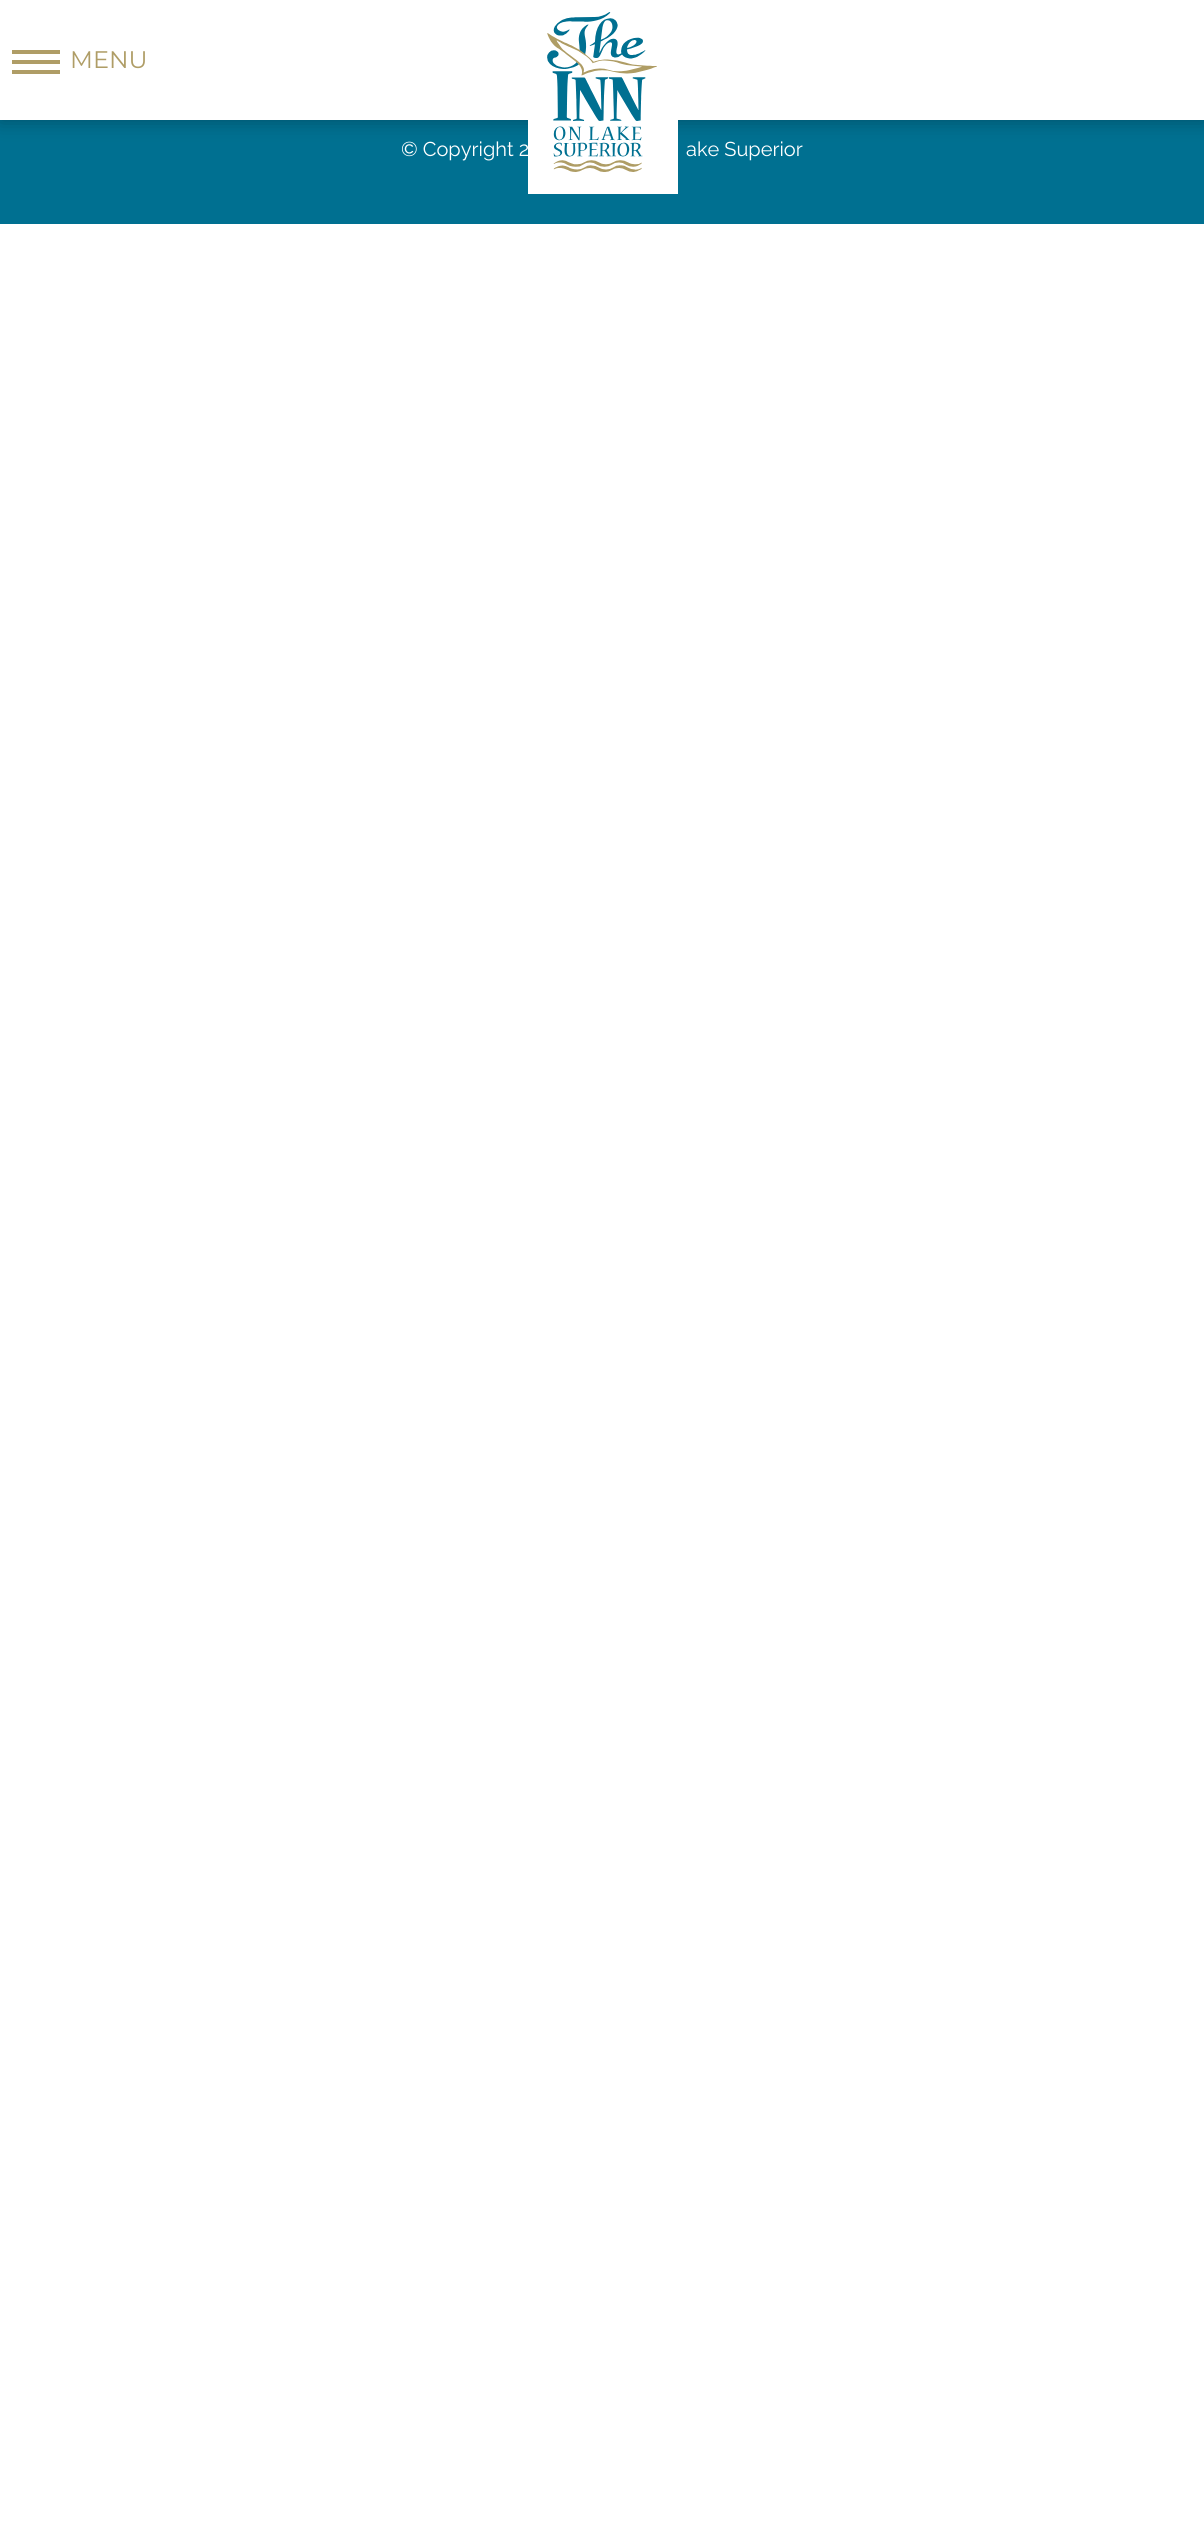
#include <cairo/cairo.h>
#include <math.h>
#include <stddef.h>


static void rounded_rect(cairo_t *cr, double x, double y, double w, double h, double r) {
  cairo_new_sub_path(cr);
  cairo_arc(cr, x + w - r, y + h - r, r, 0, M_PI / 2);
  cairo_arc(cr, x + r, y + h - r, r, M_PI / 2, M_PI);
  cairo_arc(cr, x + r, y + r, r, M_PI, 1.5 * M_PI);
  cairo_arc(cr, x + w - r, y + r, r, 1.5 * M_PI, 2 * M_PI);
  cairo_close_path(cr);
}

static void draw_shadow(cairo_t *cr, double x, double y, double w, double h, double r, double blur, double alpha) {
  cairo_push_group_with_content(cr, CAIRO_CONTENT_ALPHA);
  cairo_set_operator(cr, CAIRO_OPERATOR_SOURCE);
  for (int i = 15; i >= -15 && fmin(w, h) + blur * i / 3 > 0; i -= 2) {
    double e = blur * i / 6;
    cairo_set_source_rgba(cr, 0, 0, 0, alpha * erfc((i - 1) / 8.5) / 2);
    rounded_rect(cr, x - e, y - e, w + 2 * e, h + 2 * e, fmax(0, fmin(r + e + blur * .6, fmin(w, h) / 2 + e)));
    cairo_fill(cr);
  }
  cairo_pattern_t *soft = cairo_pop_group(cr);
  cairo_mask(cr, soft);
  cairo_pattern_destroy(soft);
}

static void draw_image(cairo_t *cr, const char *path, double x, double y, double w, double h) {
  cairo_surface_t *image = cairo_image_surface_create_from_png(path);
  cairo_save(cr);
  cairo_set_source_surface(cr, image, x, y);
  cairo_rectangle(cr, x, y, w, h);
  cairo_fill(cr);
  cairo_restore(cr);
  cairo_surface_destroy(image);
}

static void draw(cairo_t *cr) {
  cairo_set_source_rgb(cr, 1, 1, 1);
  cairo_paint(cr);
  cairo_set_source_rgb(cr, 0, 112 / 255.0, 145 / 255.0);
  cairo_rectangle(cr, 0, 120, 1204, 104);
  cairo_fill(cr);
  cairo_set_source_rgb(cr, 0, 0, 0);
  draw_shadow(cr, 0, 0, 1204, 120, 0, 10, 0.3);
  cairo_set_source_rgb(cr, 1, 1, 1);
  cairo_rectangle(cr, 0, 0, 1204, 120);
  cairo_fill(cr);
  cairo_set_source_rgb(cr, 175 / 255.0, 157 / 255.0, 102 / 255.0);
  cairo_rectangle(cr, 12, 50, 48, 4);
  cairo_fill(cr);
  cairo_rectangle(cr, 12, 60, 48, 4);
  cairo_fill(cr);
  cairo_rectangle(cr, 12, 70, 48, 4);
  cairo_fill(cr);
  cairo_set_source_rgb(cr, 1, 1, 1);
  cairo_rectangle(cr, 528, 120, 150, 74);
  cairo_fill(cr);
  draw_image(cr, "images/1.png", 547, 12, 110, 160);
  cairo_select_font_face(cr, "Montserrat Thin", CAIRO_FONT_SLANT_NORMAL, CAIRO_FONT_WEIGHT_NORMAL);
  cairo_set_font_size(cr, 24);
  cairo_set_source_rgb(cr, 175 / 255.0, 157 / 255.0, 102 / 255.0);
  cairo_move_to(cr, 70, 68);
  cairo_show_text(cr, "MENU");
  cairo_select_font_face(cr, "Raleway", CAIRO_FONT_SLANT_NORMAL, CAIRO_FONT_WEIGHT_NORMAL);
  cairo_set_font_size(cr, 20);
  cairo_set_source_rgb(cr, 1, 1, 1);
  cairo_move_to(cr, 401, 156);
  cairo_show_text(cr, "© Copyright 2");
  cairo_move_to(cr, 686, 156);
  cairo_show_text(cr, "ake Superior");
}

int main(void) {
  cairo_surface_t *surface = cairo_image_surface_create(CAIRO_FORMAT_RGB24, 1204, 2525);
  cairo_t *cr = cairo_create(surface);
  cairo_font_options_t *options = cairo_font_options_create();
  cairo_font_options_set_hint_metrics(options, CAIRO_HINT_METRICS_OFF);
  cairo_font_options_set_hint_style(options, CAIRO_HINT_STYLE_NONE);
  cairo_set_font_options(cr, options);
  cairo_set_miter_limit(cr, 4);
  draw(cr);
  cairo_surface_write_to_png(surface, "out.png");
  cairo_font_options_destroy(options);
  cairo_destroy(cr);
  cairo_surface_destroy(surface);
  return 0;
}
